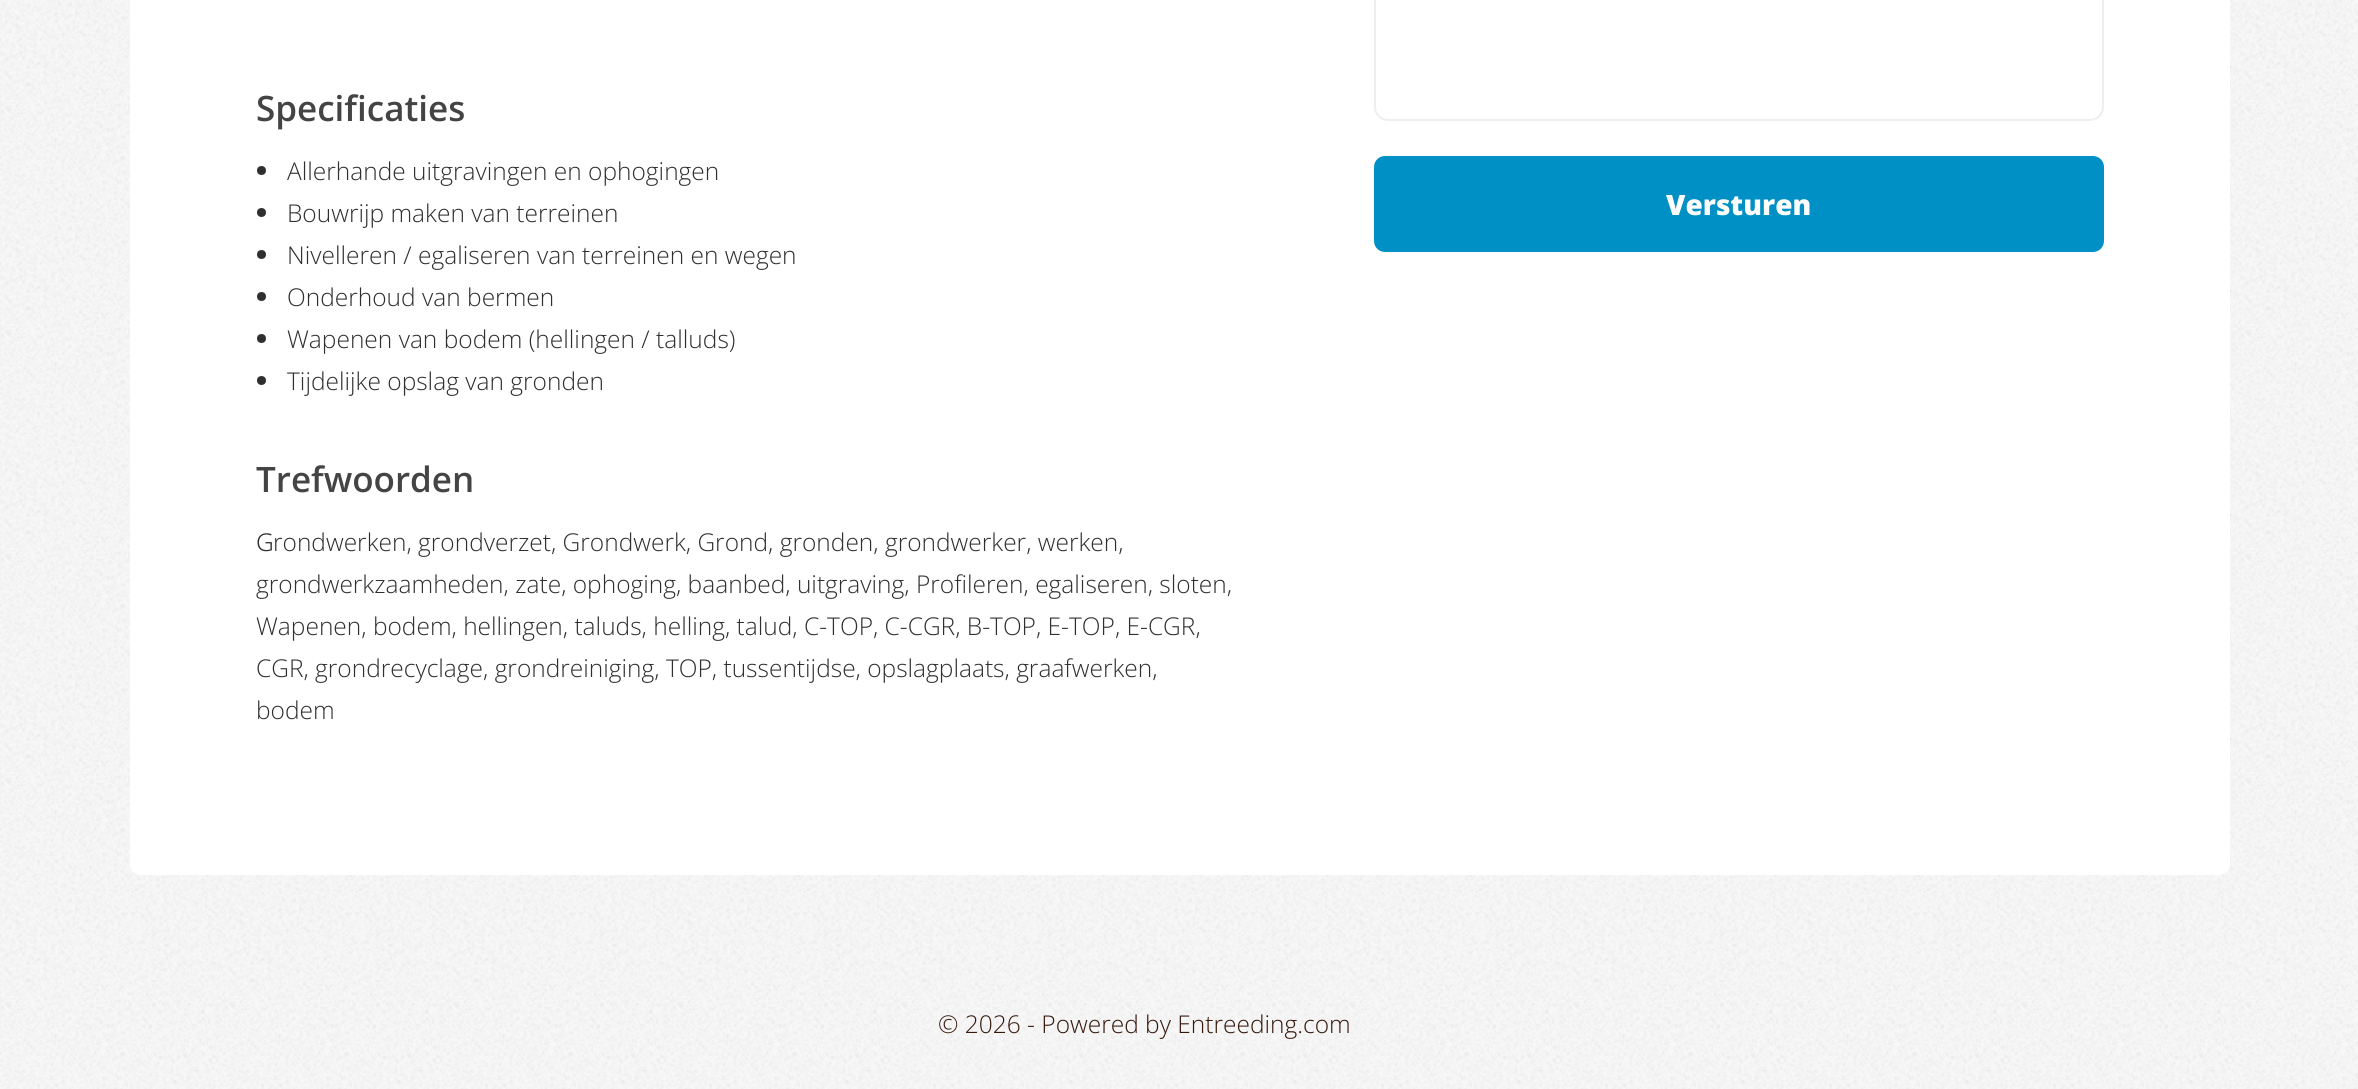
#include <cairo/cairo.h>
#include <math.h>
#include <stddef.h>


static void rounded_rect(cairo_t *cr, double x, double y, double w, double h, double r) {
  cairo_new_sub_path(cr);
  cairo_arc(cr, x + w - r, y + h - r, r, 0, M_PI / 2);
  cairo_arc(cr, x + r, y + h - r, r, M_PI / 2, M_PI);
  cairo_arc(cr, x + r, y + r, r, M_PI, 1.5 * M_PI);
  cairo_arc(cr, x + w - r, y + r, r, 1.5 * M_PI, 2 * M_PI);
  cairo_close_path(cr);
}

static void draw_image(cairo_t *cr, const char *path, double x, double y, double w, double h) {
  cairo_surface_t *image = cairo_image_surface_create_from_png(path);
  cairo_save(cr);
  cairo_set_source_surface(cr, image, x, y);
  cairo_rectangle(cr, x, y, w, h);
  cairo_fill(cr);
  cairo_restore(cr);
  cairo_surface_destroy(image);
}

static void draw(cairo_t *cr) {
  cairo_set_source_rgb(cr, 247 / 255.0, 247 / 255.0, 247 / 255.0);
  cairo_paint(cr);
  draw_image(cr, "images/1.png", 0, 0, 2358, 1089);
  cairo_set_source_rgb(cr, 1, 1, 1);
  rounded_rect(cr, 130, -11, 2100, 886, 11);
  cairo_fill(cr);
  cairo_set_source_rgb(cr, 47 / 255.0, 47 / 255.0, 47 / 255.0);
  cairo_arc(cr, 261.5, 170.5, 4.5, 0, 2 * M_PI);
  cairo_fill(cr);
  cairo_arc(cr, 261.5, 212.5, 4.5, 0, 2 * M_PI);
  cairo_fill(cr);
  cairo_arc(cr, 261.5, 254.5, 4.5, 0, 2 * M_PI);
  cairo_fill(cr);
  cairo_arc(cr, 261.5, 296.5, 4.5, 0, 2 * M_PI);
  cairo_fill(cr);
  cairo_arc(cr, 261.5, 338.5, 4.5, 0, 2 * M_PI);
  cairo_fill(cr);
  cairo_arc(cr, 261.5, 380.5, 4.5, 0, 2 * M_PI);
  cairo_fill(cr);
  rounded_rect(cr, 1375, -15, 728, 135, 13);
  cairo_set_source_rgb(cr, 238 / 255.0, 238 / 255.0, 238 / 255.0);
  cairo_stroke(cr);
  cairo_set_source_rgb(cr, 0, 144 / 255.0, 197 / 255.0);
  rounded_rect(cr, 1374, 156, 730, 96, 11);
  cairo_fill(cr);
  cairo_select_font_face(cr, "Open Sans SemiBold", CAIRO_FONT_SLANT_NORMAL, CAIRO_FONT_WEIGHT_NORMAL);
  cairo_set_font_size(cr, 35);
  cairo_set_source_rgb(cr, 68 / 255.0, 68 / 255.0, 68 / 255.0);
  cairo_move_to(cr, 256, 121);
  cairo_show_text(cr, "Specificaties");
  cairo_select_font_face(cr, "Open Sans Light", CAIRO_FONT_SLANT_NORMAL, CAIRO_FONT_WEIGHT_NORMAL);
  cairo_set_font_size(cr, 24.5);
  cairo_set_source_rgb(cr, 47 / 255.0, 47 / 255.0, 47 / 255.0);
  cairo_move_to(cr, 287, 180);
  cairo_show_text(cr, "Allerhande uitgravingen en ophogingen");
  cairo_move_to(cr, 287, 222);
  cairo_show_text(cr, "Bouwrijp maken van terreinen");
  cairo_move_to(cr, 287, 264);
  cairo_show_text(cr, "Nivelleren / egaliseren van terreinen en wegen");
  cairo_move_to(cr, 287, 306);
  cairo_show_text(cr, "Onderhoud van bermen");
  cairo_move_to(cr, 287, 348);
  cairo_show_text(cr, "Wapenen van bodem (hellingen / talluds)");
  cairo_move_to(cr, 287, 390);
  cairo_show_text(cr, "Tijdelijke opslag van gronden");
  cairo_select_font_face(cr, "Open Sans SemiBold", CAIRO_FONT_SLANT_NORMAL, CAIRO_FONT_WEIGHT_NORMAL);
  cairo_set_font_size(cr, 35);
  cairo_set_source_rgb(cr, 68 / 255.0, 68 / 255.0, 68 / 255.0);
  cairo_move_to(cr, 256, 492);
  cairo_show_text(cr, "Trefwoorden");
  cairo_select_font_face(cr, "Noto Sans Light", CAIRO_FONT_SLANT_NORMAL, CAIRO_FONT_WEIGHT_NORMAL);
  cairo_set_font_size(cr, 24.5);
  cairo_set_source_rgb(cr, 47 / 255.0, 47 / 255.0, 47 / 255.0);
  cairo_move_to(cr, 256, 551);
  cairo_show_text(cr, "G");
  cairo_select_font_face(cr, "Open Sans Light", CAIRO_FONT_SLANT_NORMAL, CAIRO_FONT_WEIGHT_NORMAL);
  cairo_move_to(cr, 273, 551);
  cairo_show_text(cr, "rondwerken, grondverzet, Grondwerk, Grond, gronden, grondwerker, werken,");
  cairo_move_to(cr, 256, 593);
  cairo_show_text(cr, "grondwerkzaamheden, zate, ophoging, baanbed, uitgraving, Profileren, egaliseren, sloten,");
  cairo_move_to(cr, 256, 635);
  cairo_show_text(cr, "Wapenen, bodem, hellingen, taluds, helling, talud, C-TOP, C-CGR, B-TOP, E-TOP, E-CGR,");
  cairo_move_to(cr, 256, 677);
  cairo_show_text(cr, "CGR, grondrecyclage, grondreiniging, TOP, tussentijdse, opslagplaats, graafwerken,");
  cairo_move_to(cr, 256, 719);
  cairo_show_text(cr, "bodem");
  cairo_select_font_face(cr, "Open Sans ExtraBold", CAIRO_FONT_SLANT_NORMAL, CAIRO_FONT_WEIGHT_NORMAL);
  cairo_set_font_size(cr, 28);
  cairo_set_source_rgb(cr, 1, 1, 1);
  cairo_move_to(cr, 1666, 215);
  cairo_show_text(cr, "Versturen");
  cairo_select_font_face(cr, "Open Sans Light", CAIRO_FONT_SLANT_NORMAL, CAIRO_FONT_WEIGHT_NORMAL);
  cairo_set_font_size(cr, 24.5);
  cairo_set_source_rgb(cr, 55 / 255.0, 25 / 255.0, 12 / 255.0);
  cairo_move_to(cr, 938, 1033);
  cairo_show_text(cr, "© 2026 - Powered by Entreeding.com");
}

int main(void) {
  cairo_surface_t *surface = cairo_image_surface_create(CAIRO_FORMAT_RGB24, 2358, 1089);
  cairo_t *cr = cairo_create(surface);
  cairo_font_options_t *options = cairo_font_options_create();
  cairo_font_options_set_hint_metrics(options, CAIRO_HINT_METRICS_OFF);
  cairo_font_options_set_hint_style(options, CAIRO_HINT_STYLE_NONE);
  cairo_set_font_options(cr, options);
  cairo_set_miter_limit(cr, 4);
  draw(cr);
  cairo_surface_write_to_png(surface, "out.png");
  cairo_font_options_destroy(options);
  cairo_destroy(cr);
  cairo_surface_destroy(surface);
  return 0;
}
